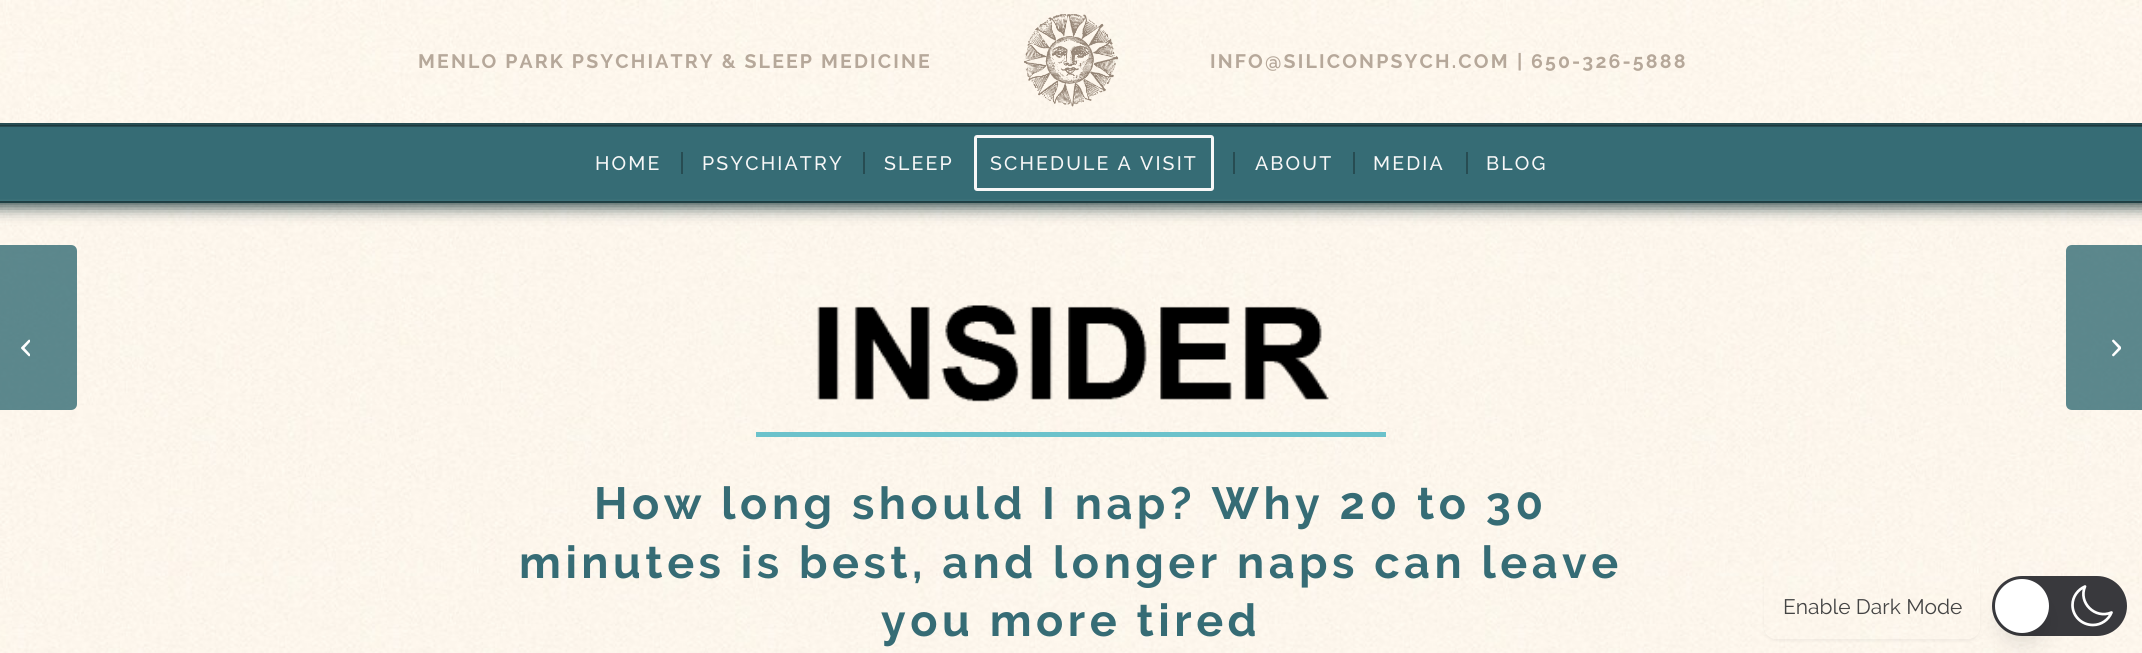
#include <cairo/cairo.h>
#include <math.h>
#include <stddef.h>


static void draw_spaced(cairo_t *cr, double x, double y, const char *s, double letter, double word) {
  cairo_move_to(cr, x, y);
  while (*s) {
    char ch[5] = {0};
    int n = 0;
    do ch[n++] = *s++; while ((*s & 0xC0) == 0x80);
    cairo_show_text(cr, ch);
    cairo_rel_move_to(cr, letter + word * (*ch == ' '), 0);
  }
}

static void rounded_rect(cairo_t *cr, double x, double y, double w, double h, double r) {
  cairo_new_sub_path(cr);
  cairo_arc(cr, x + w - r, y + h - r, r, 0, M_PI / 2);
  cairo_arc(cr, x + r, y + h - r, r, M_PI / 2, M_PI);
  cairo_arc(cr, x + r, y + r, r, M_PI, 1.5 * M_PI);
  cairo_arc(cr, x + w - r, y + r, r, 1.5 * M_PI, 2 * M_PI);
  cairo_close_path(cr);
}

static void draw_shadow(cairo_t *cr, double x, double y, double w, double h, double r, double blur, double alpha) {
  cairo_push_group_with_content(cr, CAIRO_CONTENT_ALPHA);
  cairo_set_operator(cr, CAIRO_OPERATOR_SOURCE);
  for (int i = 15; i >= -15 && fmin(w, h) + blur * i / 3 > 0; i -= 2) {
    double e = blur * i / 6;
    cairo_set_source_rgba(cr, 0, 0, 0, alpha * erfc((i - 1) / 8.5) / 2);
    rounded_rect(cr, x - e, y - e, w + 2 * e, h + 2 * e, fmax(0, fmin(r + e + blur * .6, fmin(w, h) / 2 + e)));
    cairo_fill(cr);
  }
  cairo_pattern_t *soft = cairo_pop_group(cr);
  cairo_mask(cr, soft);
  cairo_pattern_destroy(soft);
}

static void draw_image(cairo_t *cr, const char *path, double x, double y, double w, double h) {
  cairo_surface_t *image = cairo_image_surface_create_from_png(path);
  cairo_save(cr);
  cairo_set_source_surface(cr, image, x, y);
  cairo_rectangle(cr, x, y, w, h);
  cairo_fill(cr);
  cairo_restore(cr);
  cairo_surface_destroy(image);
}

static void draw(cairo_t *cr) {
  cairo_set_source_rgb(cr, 54 / 255.0, 108 / 255.0, 117 / 255.0);
  cairo_paint(cr);
  draw_image(cr, "images/5.png", 0, 199, 2142, 454);
  cairo_set_source_rgb(cr, 39 / 255.0, 76 / 255.0, 82 / 255.0);
  cairo_rectangle(cr, 0, 201, 2142, 2);
  cairo_fill(cr);
  cairo_rectangle(cr, 0, 125, 2142, 2);
  cairo_fill(cr);
  cairo_set_source_rgb(cr, 235 / 255.0, 235 / 255.0, 235 / 255.0);
  cairo_rectangle(cr, 0, 200, 2142, 1);
  cairo_fill(cr);
  cairo_set_source_rgba(cr, 54 / 255.0, 108 / 255.0, 117 / 255.0, 0.95);
  cairo_rectangle(cr, 0, 199, 2142, 2);
  cairo_fill(cr);
  cairo_save(cr);
  cairo_set_fill_rule(cr, CAIRO_FILL_RULE_EVEN_ODD);
  cairo_new_path(cr);
  cairo_move_to(cr, 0, 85);
  cairo_line_to(cr, 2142, 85);
  cairo_line_to(cr, 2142, 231);
  cairo_line_to(cr, 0, 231);
  cairo_close_path(cr);
  cairo_move_to(cr, 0, 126);
  cairo_line_to(cr, 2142, 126);
  cairo_line_to(cr, 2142, 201);
  cairo_line_to(cr, 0, 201);
  cairo_close_path(cr);
  cairo_clip(cr);
  cairo_set_source_rgb(cr, 29 / 255.0, 58 / 255.0, 62 / 255.0);
  draw_shadow(cr, -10, 110, 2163, 96, 0, 8, 1);
  cairo_restore(cr);
  draw_image(cr, "images/1.png", 0, 0, 2142, 123);
  cairo_set_source_rgb(cr, 39 / 255.0, 76 / 255.0, 82 / 255.0);
  cairo_rectangle(cr, 0, 123, 2142, 2);
  cairo_fill(cr);
  draw_image(cr, "images/2.png", 1024, 14, 95, 93);
  cairo_rectangle(cr, 681, 152, 2, 22);
  cairo_fill(cr);
  cairo_rectangle(cr, 863, 152, 2, 22);
  cairo_fill(cr);
  rounded_rect(cr, 975.5, 136.5, 237, 53, 1.5);
  cairo_set_source_rgb(cr, 247 / 255.0, 247 / 255.0, 247 / 255.0);
  cairo_set_line_width(cr, 3);
  cairo_stroke(cr);
  cairo_set_source_rgb(cr, 39 / 255.0, 76 / 255.0, 82 / 255.0);
  cairo_rectangle(cr, 1233, 152, 2, 22);
  cairo_fill(cr);
  cairo_rectangle(cr, 1353, 152, 2, 22);
  cairo_fill(cr);
  cairo_rectangle(cr, 1466, 152, 2, 22);
  cairo_fill(cr);
  cairo_set_source_rgba(cr, 52 / 255.0, 108 / 255.0, 117 / 255.0, 0.8);
  cairo_new_path(cr);
  cairo_move_to(cr, 0, 245);
  cairo_line_to(cr, 71, 245);
  cairo_curve_to(cr, 74.5, 245, 77, 247.5, 77, 251);
  cairo_line_to(cr, 77, 404);
  cairo_curve_to(cr, 77, 407.5, 74.5, 410, 71, 410);
  cairo_line_to(cr, 0, 410);
  cairo_close_path(cr);
  cairo_fill(cr);
  draw_image(cr, "images/3.png", 21, 339, 9, 18);
  cairo_new_path(cr);
  cairo_move_to(cr, 2072, 245);
  cairo_line_to(cr, 2142, 245);
  cairo_line_to(cr, 2142, 410);
  cairo_line_to(cr, 2072, 410);
  cairo_curve_to(cr, 2068.5, 410, 2066, 407.5, 2066, 404);
  cairo_line_to(cr, 2066, 251);
  cairo_curve_to(cr, 2066, 247.5, 2068.5, 245, 2072, 245);
  cairo_close_path(cr);
  cairo_fill(cr);
  draw_image(cr, "images/4.png", 2112, 339, 9, 18);
  cairo_set_source_rgb(cr, 108 / 255.0, 194 / 255.0, 203 / 255.0);
  cairo_rectangle(cr, 756, 432, 630, 5);
  cairo_fill(cr);
  draw_image(cr, "images/6.png", 817, 305, 512, 97);
  cairo_save(cr);
  cairo_set_fill_rule(cr, CAIRO_FILL_RULE_EVEN_ODD);
  cairo_new_path(cr);
  cairo_move_to(cr, 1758, 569);
  cairo_line_to(cr, 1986, 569);
  cairo_line_to(cr, 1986, 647);
  cairo_line_to(cr, 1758, 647);
  cairo_close_path(cr);
  cairo_move_to(cr, 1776, 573);
  cairo_line_to(cr, 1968, 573);
  cairo_curve_to(cr, 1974.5, 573, 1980, 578.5, 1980, 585);
  cairo_line_to(cr, 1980, 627);
  cairo_curve_to(cr, 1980, 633.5, 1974.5, 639, 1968, 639);
  cairo_line_to(cr, 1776, 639);
  cairo_curve_to(cr, 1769.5, 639, 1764, 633.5, 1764, 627);
  cairo_line_to(cr, 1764, 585);
  cairo_curve_to(cr, 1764, 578.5, 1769.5, 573, 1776, 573);
  cairo_close_path(cr);
  cairo_clip(cr);
  cairo_set_source_rgb(cr, 0, 0, 0);
  draw_shadow(cr, 1764, 575, 216, 66, 12, 1.5, 0.05);
  cairo_restore(cr);
  cairo_set_source_rgb(cr, 57 / 255.0, 57 / 255.0, 61 / 255.0);
  rounded_rect(cr, 1992, 576, 135, 60, 30);
  cairo_fill(cr);
  cairo_new_path(cr);
  cairo_move_to(cr, 2111.5, 612.5);
  cairo_curve_to(cr, 2095, 619.5, 2078, 602.5, 2085, 586.5);
  cairo_curve_to(cr, 2078, 589.5, 2072.5, 596.5, 2072.5, 605);
  cairo_curve_to(cr, 2072.5, 616, 2081.5, 625, 2093, 625);
  cairo_curve_to(cr, 2101, 625, 2108.5, 620, 2111.5, 612.5);
  cairo_close_path(cr);
  cairo_set_source_rgb(cr, 1, 1, 1);
  cairo_set_line_width(cr, 2.7);
  cairo_set_line_cap(cr, CAIRO_LINE_CAP_ROUND);
  cairo_set_line_join(cr, CAIRO_LINE_JOIN_ROUND);
  cairo_stroke(cr);
  cairo_set_source_rgb(cr, 0, 0, 0);
  draw_shadow(cr, 2000, 599, 45, 45, 22.5, 11, 0.1);
  cairo_set_source_rgb(cr, 1, 1, 1);
  cairo_arc(cr, 2022, 606, 27, 0, 2 * M_PI);
  cairo_fill(cr);
  cairo_select_font_face(cr, "Raleway", CAIRO_FONT_SLANT_NORMAL, CAIRO_FONT_WEIGHT_BOLD);
  cairo_set_font_size(cr, 19.5);
  cairo_set_source_rgb(cr, 182 / 255.0, 168 / 255.0, 154 / 255.0);
  draw_spaced(cr, 418, 68, "MENLO PARK PSYCHIATRY & SLEEP MEDICINE", 2.15, 0);
  draw_spaced(cr, 1210, 68, "INFO@SILICONPSYCH.COM", 2.15, 0);
  draw_spaced(cr, 1517, 68, "|", 2.15, 0);
  draw_spaced(cr, 1531, 68, "650-326-5888", 2.15, 0);
  cairo_select_font_face(cr, "Raleway Medium", CAIRO_FONT_SLANT_NORMAL, CAIRO_FONT_WEIGHT_NORMAL);
  cairo_set_source_rgb(cr, 247 / 255.0, 247 / 255.0, 247 / 255.0);
  draw_spaced(cr, 595, 170, "HOME", 2.15, 0);
  draw_spaced(cr, 702, 170, "PSYCHIATRY", 2.15, 0);
  draw_spaced(cr, 884, 170, "SLEEP", 2.15, 0);
  draw_spaced(cr, 990, 170, "SCHEDULE A VISIT", 2.15, 0);
  draw_spaced(cr, 1255, 170, "ABOUT", 2.15, 0);
  draw_spaced(cr, 1373, 170, "MEDIA", 2.15, 0);
  draw_spaced(cr, 1486, 170, "BLOG", 2.15, 0);
  cairo_select_font_face(cr, "Raleway", CAIRO_FONT_SLANT_NORMAL, CAIRO_FONT_WEIGHT_BOLD);
  cairo_set_font_size(cr, 45);
  cairo_set_source_rgb(cr, 54 / 255.0, 108 / 255.0, 117 / 255.0);
  draw_spaced(cr, 594, 519, "How long should I nap? Why 20 to 30", 4.5, 0);
  draw_spaced(cr, 519, 578, "minutes is best, and longer naps can leave", 4.5, 0);
  draw_spaced(cr, 881, 636, "you more tired", 4.5, 0);
  cairo_select_font_face(cr, "Raleway", CAIRO_FONT_SLANT_NORMAL, CAIRO_FONT_WEIGHT_NORMAL);
  cairo_set_font_size(cr, 21);
  cairo_set_source_rgb(cr, 68 / 255.0, 68 / 255.0, 68 / 255.0);
  cairo_move_to(cr, 1783, 614);
  cairo_show_text(cr, "Enable Dark Mode");
}

int main(void) {
  cairo_surface_t *surface = cairo_image_surface_create(CAIRO_FORMAT_RGB24, 2142, 653);
  cairo_t *cr = cairo_create(surface);
  cairo_font_options_t *options = cairo_font_options_create();
  cairo_font_options_set_hint_metrics(options, CAIRO_HINT_METRICS_OFF);
  cairo_font_options_set_hint_style(options, CAIRO_HINT_STYLE_NONE);
  cairo_set_font_options(cr, options);
  cairo_set_miter_limit(cr, 4);
  draw(cr);
  cairo_surface_write_to_png(surface, "out.png");
  cairo_font_options_destroy(options);
  cairo_destroy(cr);
  cairo_surface_destroy(surface);
  return 0;
}
